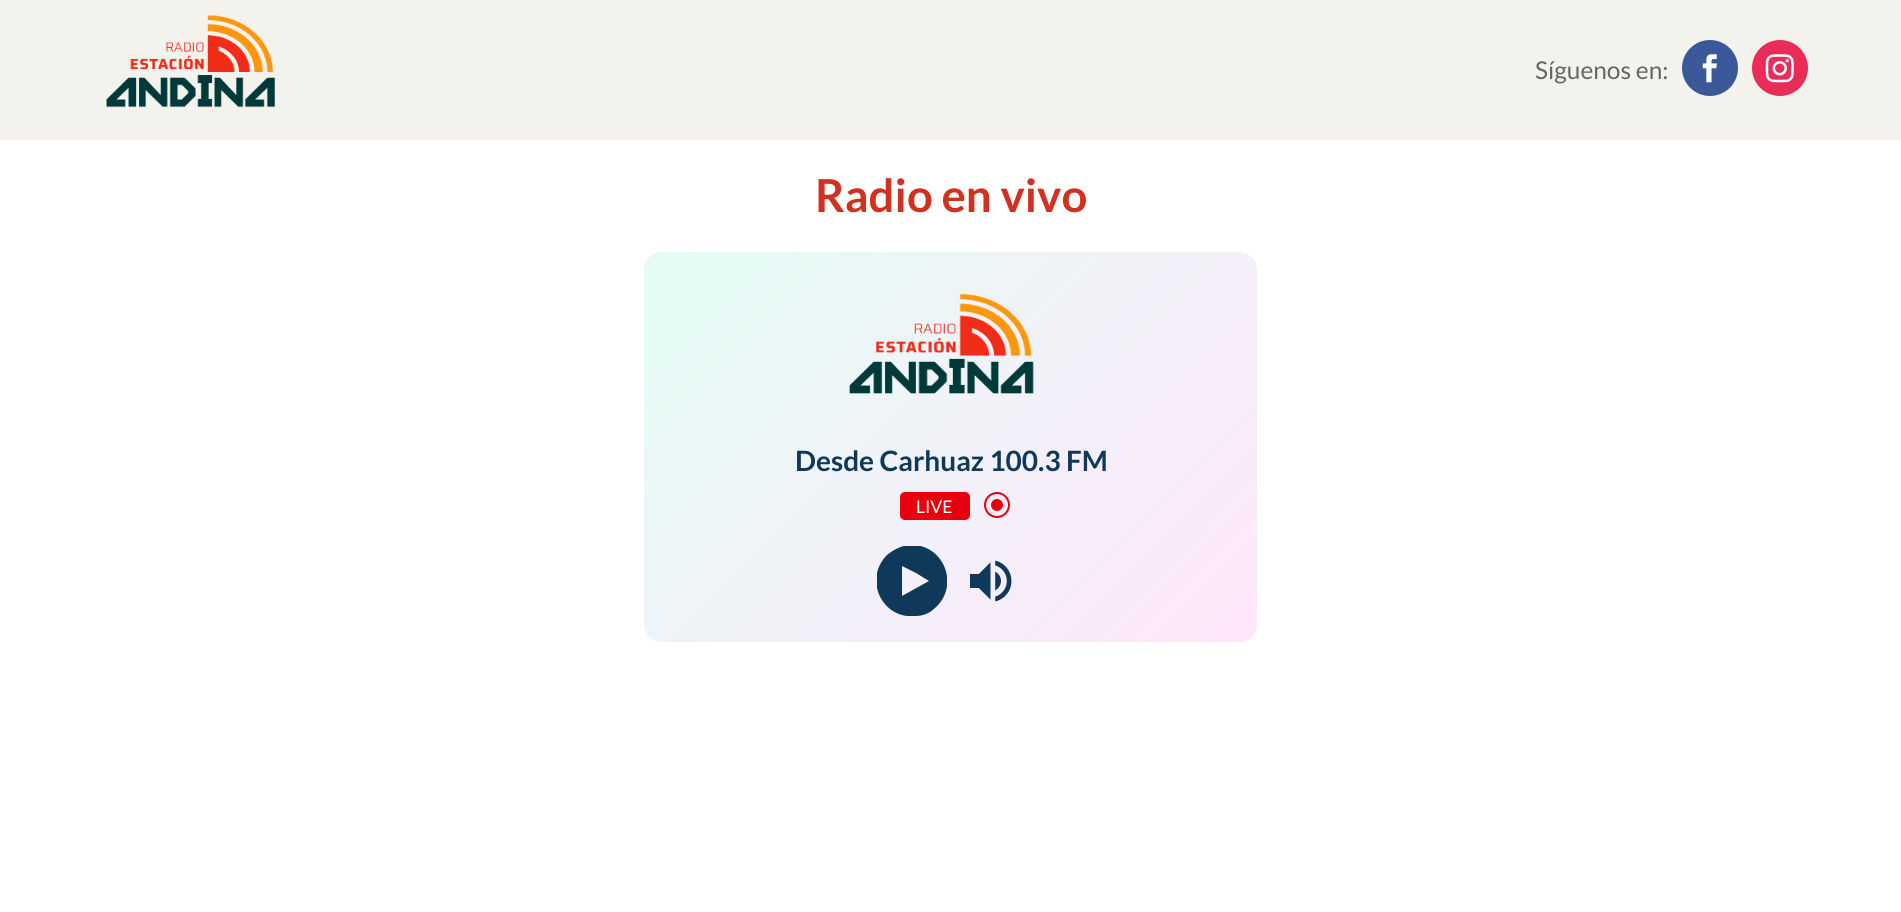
#include <cairo/cairo.h>
#include <math.h>
#include <stddef.h>


static void rounded_rect(cairo_t *cr, double x, double y, double w, double h, double r) {
  cairo_new_sub_path(cr);
  cairo_arc(cr, x + w - r, y + h - r, r, 0, M_PI / 2);
  cairo_arc(cr, x + r, y + h - r, r, M_PI / 2, M_PI);
  cairo_arc(cr, x + r, y + r, r, M_PI, 1.5 * M_PI);
  cairo_arc(cr, x + w - r, y + r, r, 1.5 * M_PI, 2 * M_PI);
  cairo_close_path(cr);
}

static void draw_image(cairo_t *cr, const char *path, double x, double y, double w, double h) {
  cairo_surface_t *image = cairo_image_surface_create_from_png(path);
  cairo_save(cr);
  cairo_set_source_surface(cr, image, x, y);
  cairo_rectangle(cr, x, y, w, h);
  cairo_fill(cr);
  cairo_restore(cr);
  cairo_surface_destroy(image);
}

static void draw(cairo_t *cr) {
  cairo_pattern_t *gradient;
  cairo_set_source_rgb(cr, 1, 1, 1);
  cairo_paint(cr);
  cairo_set_source_rgb(cr, 243 / 255.0, 242 / 255.0, 237 / 255.0);
  cairo_rectangle(cr, 0, 0, 1901, 140);
  cairo_fill(cr);
  draw_image(cr, "images/1.png", 106, 15, 169, 93);
  cairo_set_source_rgb(cr, 59 / 255.0, 89 / 255.0, 152 / 255.0);
  cairo_arc(cr, 1710, 68, 28, 0, 2 * M_PI);
  cairo_fill(cr);
  draw_image(cr, "images/2.png", 1702, 54, 15, 29);
  cairo_set_source_rgb(cr, 234 / 255.0, 44 / 255.0, 89 / 255.0);
  cairo_arc(cr, 1780, 68, 28, 0, 2 * M_PI);
  cairo_fill(cr);
  draw_image(cr, "images/3.png", 1765, 54, 29, 29);
  gradient = cairo_pattern_create_linear(700, 196, 1201, 698);
  cairo_pattern_add_color_stop_rgba(gradient, 0, 227 / 255.0, 253 / 255.0, 245 / 255.0, 1);
  cairo_pattern_add_color_stop_rgba(gradient, 1, 1, 230 / 255.0, 250 / 255.0, 1);
  cairo_set_source(cr, gradient);
  cairo_pattern_destroy(gradient);
  rounded_rect(cr, 644, 252, 613, 390, 18);
  cairo_fill(cr);
  draw_image(cr, "images/4.png", 849, 293, 185, 101);
  cairo_set_source_rgb(cr, 232 / 255.0, 0, 14 / 255.0);
  rounded_rect(cr, 900, 492, 70, 28, 5);
  cairo_fill(cr);
  cairo_arc(cr, 997, 505, 6, 0, 2 * M_PI);
  cairo_fill(cr);
  cairo_arc(cr, 997, 505, 12, 0, 2 * M_PI);
  cairo_stroke(cr);
  cairo_save(cr);
  cairo_rectangle(cr, 877, 546, 70, 70);
  cairo_clip(cr);
  cairo_set_source_rgb(cr, 14 / 255.0, 57 / 255.0, 91 / 255.0);
  cairo_new_path(cr);
  cairo_move_to(cr, 908, 545);
  cairo_curve_to(cr, 901, 546, 893, 550, 887, 555);
  cairo_curve_to(cr, 863, 579, 882, 620, 916, 616);
  cairo_curve_to(cr, 923, 616, 930, 613, 935, 608);
  cairo_curve_to(cr, 961, 585, 943, 542, 908, 545);
  cairo_close_path(cr);
  cairo_move_to(cr, 916, 573);
  cairo_line_to(cr, 929, 581);
  cairo_line_to(cr, 902, 596);
  cairo_line_to(cr, 902, 566);
  cairo_close_path(cr);
  cairo_fill(cr);
  cairo_restore(cr);
  draw_image(cr, "images/5.png", 970, 560, 42, 42);
  cairo_select_font_face(cr, "Lato", CAIRO_FONT_SLANT_NORMAL, CAIRO_FONT_WEIGHT_NORMAL);
  cairo_set_font_size(cr, 24.5);
  cairo_set_source_rgb(cr, 102 / 255.0, 102 / 255.0, 102 / 255.0);
  cairo_move_to(cr, 1535, 79);
  cairo_show_text(cr, "Síguenos en:");
  cairo_select_font_face(cr, "Lato", CAIRO_FONT_SLANT_NORMAL, CAIRO_FONT_WEIGHT_BOLD);
  cairo_set_font_size(cr, 45.5);
  cairo_set_source_rgb(cr, 208 / 255.0, 49 / 255.0, 32 / 255.0);
  cairo_move_to(cr, 815, 212);
  cairo_show_text(cr, "Radio en vivo");
  cairo_set_font_size(cr, 28);
  cairo_set_source_rgb(cr, 14 / 255.0, 57 / 255.0, 91 / 255.0);
  cairo_move_to(cr, 795, 471);
  cairo_show_text(cr, "Desde Carhuaz 100.3 FM");
  cairo_select_font_face(cr, "Lato", CAIRO_FONT_SLANT_NORMAL, CAIRO_FONT_WEIGHT_NORMAL);
  cairo_set_font_size(cr, 17.5);
  cairo_set_source_rgb(cr, 1, 1, 1);
  cairo_move_to(cr, 916, 513);
  cairo_show_text(cr, "LIVE");
}

int main(void) {
  cairo_surface_t *surface = cairo_image_surface_create(CAIRO_FORMAT_RGB24, 1901, 912);
  cairo_t *cr = cairo_create(surface);
  cairo_font_options_t *options = cairo_font_options_create();
  cairo_font_options_set_hint_metrics(options, CAIRO_HINT_METRICS_OFF);
  cairo_font_options_set_hint_style(options, CAIRO_HINT_STYLE_NONE);
  cairo_set_font_options(cr, options);
  cairo_set_miter_limit(cr, 4);
  draw(cr);
  cairo_surface_write_to_png(surface, "out.png");
  cairo_font_options_destroy(options);
  cairo_destroy(cr);
  cairo_surface_destroy(surface);
  return 0;
}
